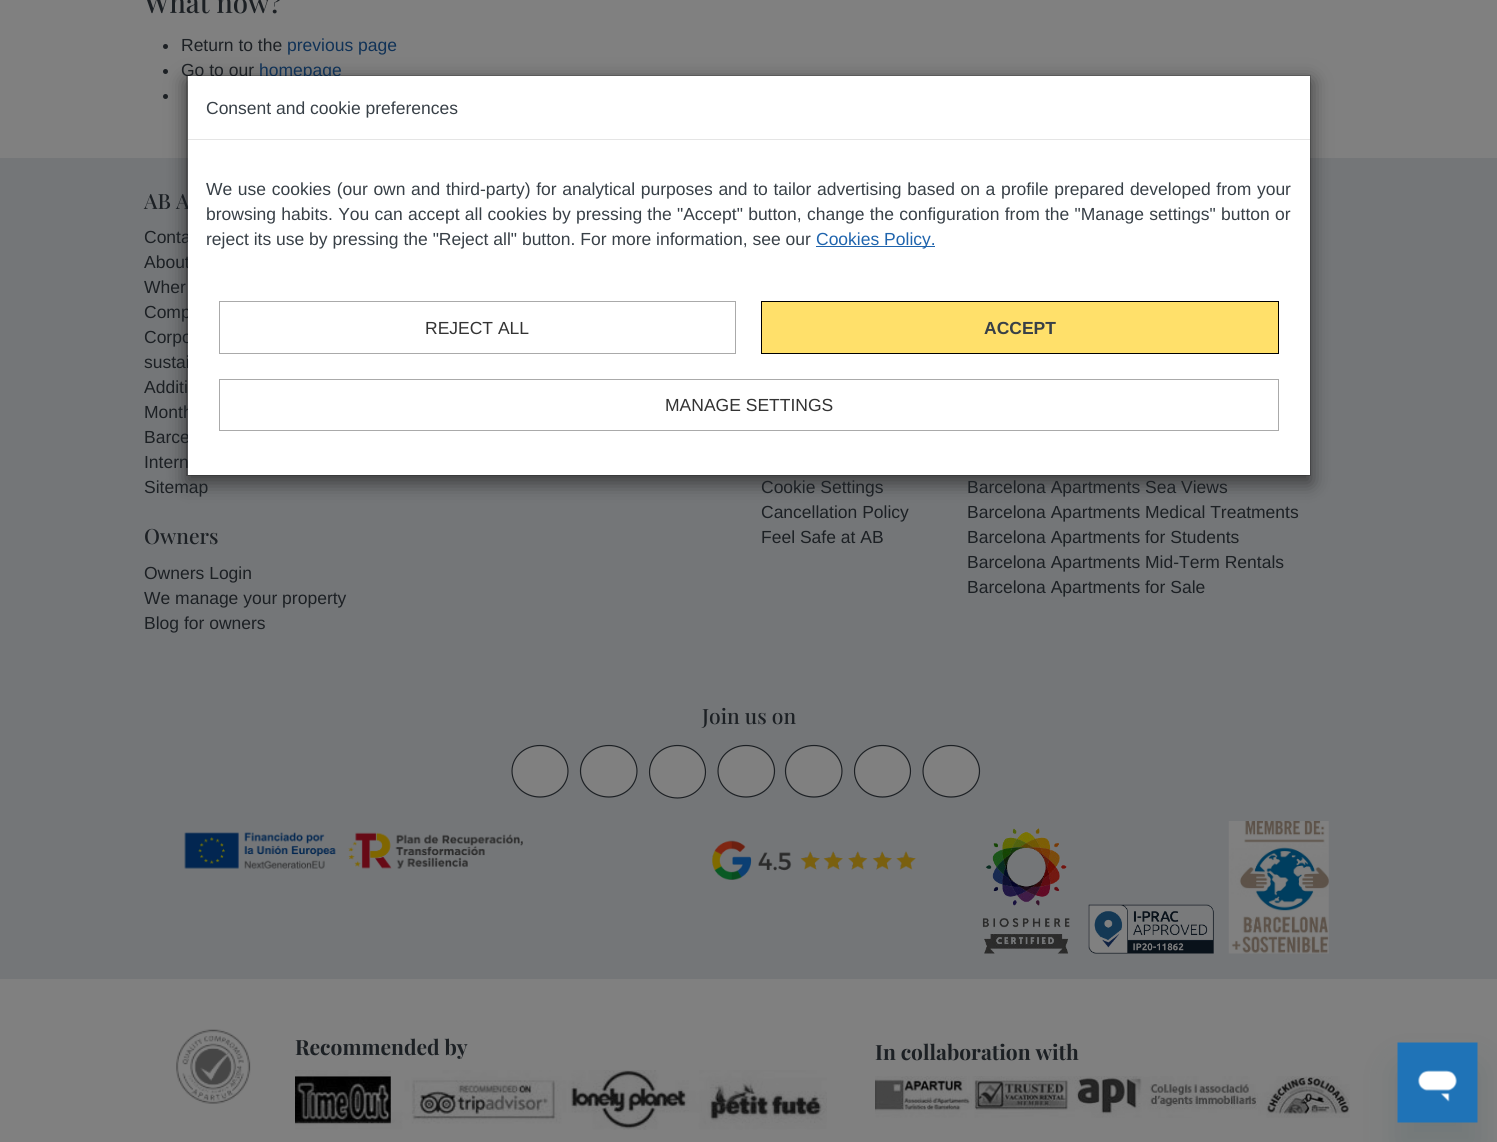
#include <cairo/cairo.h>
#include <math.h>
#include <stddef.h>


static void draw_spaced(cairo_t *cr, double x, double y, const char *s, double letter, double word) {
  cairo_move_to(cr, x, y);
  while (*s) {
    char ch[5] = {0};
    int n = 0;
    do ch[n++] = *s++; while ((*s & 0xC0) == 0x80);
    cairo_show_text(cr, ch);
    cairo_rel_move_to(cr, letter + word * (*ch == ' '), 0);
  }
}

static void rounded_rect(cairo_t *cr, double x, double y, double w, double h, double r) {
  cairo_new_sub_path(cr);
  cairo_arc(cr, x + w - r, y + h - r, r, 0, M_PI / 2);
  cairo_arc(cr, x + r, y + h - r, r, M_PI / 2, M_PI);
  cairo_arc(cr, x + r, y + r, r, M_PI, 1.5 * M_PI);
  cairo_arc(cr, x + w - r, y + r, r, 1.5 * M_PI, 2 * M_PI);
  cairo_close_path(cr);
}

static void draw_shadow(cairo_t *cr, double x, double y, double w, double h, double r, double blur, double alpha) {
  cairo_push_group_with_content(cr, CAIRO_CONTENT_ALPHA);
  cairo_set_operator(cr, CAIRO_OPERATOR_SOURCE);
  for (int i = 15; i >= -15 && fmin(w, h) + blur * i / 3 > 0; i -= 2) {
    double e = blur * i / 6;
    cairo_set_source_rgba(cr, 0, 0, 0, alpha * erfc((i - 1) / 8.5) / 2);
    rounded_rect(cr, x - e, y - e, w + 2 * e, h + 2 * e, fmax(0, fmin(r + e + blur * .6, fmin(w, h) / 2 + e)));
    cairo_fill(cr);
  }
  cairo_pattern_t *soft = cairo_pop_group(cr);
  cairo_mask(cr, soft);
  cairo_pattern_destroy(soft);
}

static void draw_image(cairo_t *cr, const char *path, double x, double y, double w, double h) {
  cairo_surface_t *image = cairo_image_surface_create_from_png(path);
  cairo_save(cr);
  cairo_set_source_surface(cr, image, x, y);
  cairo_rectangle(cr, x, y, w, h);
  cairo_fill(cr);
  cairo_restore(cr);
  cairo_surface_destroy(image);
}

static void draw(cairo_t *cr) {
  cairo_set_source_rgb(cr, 128 / 255.0, 128 / 255.0, 128 / 255.0);
  cairo_paint(cr);
  cairo_set_source_rgb(cr, 28 / 255.0, 32 / 255.0, 36 / 255.0);
  cairo_arc(cr, 165.5, 46.5, 2.5, 0, 2 * M_PI);
  cairo_fill(cr);
  cairo_arc(cr, 165.5, 71.5, 2.5, 0, 2 * M_PI);
  cairo_fill(cr);
  cairo_arc(cr, 165.5, 96.5, 2.5, 0, 2 * M_PI);
  cairo_fill(cr);
  cairo_set_source_rgb(cr, 116 / 255.0, 118 / 255.0, 120 / 255.0);
  cairo_rectangle(cr, 0, 158, 1497, 821);
  cairo_fill(cr);
  cairo_set_source_rgb(cr, 0, 0, 0);
  draw_shadow(cr, 186, 81, 1125, 402, 0, 9.5, 0.5);
  cairo_set_source_rgb(cr, 128 / 255.0, 128 / 255.0, 128 / 255.0);
  cairo_new_path(cr);
  cairo_move_to(cr, 540, 745);
  cairo_curve_to(cr, 556, 745, 569, 756.5, 569, 771);
  cairo_curve_to(cr, 569, 785.5, 556, 797, 540, 797);
  cairo_curve_to(cr, 524, 797, 511, 785.5, 511, 771);
  cairo_curve_to(cr, 511, 756.5, 524, 745, 540, 745);
  cairo_close_path(cr);
  cairo_fill(cr);
  cairo_new_path(cr);
  cairo_move_to(cr, 540, 745.5);
  cairo_curve_to(cr, 555.5, 745.5, 568, 757, 568, 771);
  cairo_curve_to(cr, 568, 785.5, 555.5, 797, 540, 797);
  cairo_curve_to(cr, 524.5, 797, 512, 785.5, 512, 771);
  cairo_curve_to(cr, 512, 757, 524.5, 745.5, 540, 745.5);
  cairo_close_path(cr);
  cairo_set_source_rgb(cr, 28 / 255.0, 32 / 255.0, 36 / 255.0);
  cairo_set_line_width(cr, 1.2);
  cairo_stroke(cr);
  cairo_set_source_rgb(cr, 128 / 255.0, 128 / 255.0, 128 / 255.0);
  cairo_new_path(cr);
  cairo_move_to(cr, 609, 745);
  cairo_curve_to(cr, 625, 745, 638, 756.5, 638, 771);
  cairo_curve_to(cr, 638, 785.5, 625, 797, 609, 797);
  cairo_curve_to(cr, 593, 797, 580, 785.5, 580, 771);
  cairo_curve_to(cr, 580, 756.5, 593, 745, 609, 745);
  cairo_close_path(cr);
  cairo_fill(cr);
  cairo_new_path(cr);
  cairo_move_to(cr, 609, 745.5);
  cairo_curve_to(cr, 624.5, 745.5, 637, 757, 637, 771);
  cairo_curve_to(cr, 637, 785.5, 624.5, 797, 609, 797);
  cairo_curve_to(cr, 593, 797, 580.5, 785.5, 580.5, 771);
  cairo_curve_to(cr, 580.5, 757, 593, 745.5, 609, 745.5);
  cairo_close_path(cr);
  cairo_set_source_rgb(cr, 28 / 255.0, 32 / 255.0, 36 / 255.0);
  cairo_stroke(cr);
  cairo_set_source_rgb(cr, 128 / 255.0, 128 / 255.0, 128 / 255.0);
  cairo_new_path(cr);
  cairo_move_to(cr, 677.5, 745);
  cairo_curve_to(cr, 693.5, 745, 706.5, 757, 706.5, 772);
  cairo_curve_to(cr, 706.5, 787, 693.5, 799, 677.5, 799);
  cairo_curve_to(cr, 661.5, 799, 648.5, 787, 648.5, 772);
  cairo_curve_to(cr, 648.5, 757, 661.5, 745, 677.5, 745);
  cairo_close_path(cr);
  cairo_fill(cr);
  cairo_new_path(cr);
  cairo_move_to(cr, 677.5, 745.5);
  cairo_curve_to(cr, 693, 745.5, 705.5, 757.5, 705.5, 772);
  cairo_curve_to(cr, 705.5, 786.5, 693, 798, 677.5, 798);
  cairo_curve_to(cr, 662, 798, 649.5, 786.5, 649.5, 772);
  cairo_curve_to(cr, 649.5, 757.5, 662, 745.5, 677.5, 745.5);
  cairo_close_path(cr);
  cairo_set_source_rgb(cr, 28 / 255.0, 32 / 255.0, 36 / 255.0);
  cairo_stroke(cr);
  cairo_set_source_rgb(cr, 128 / 255.0, 128 / 255.0, 128 / 255.0);
  cairo_new_path(cr);
  cairo_move_to(cr, 746, 745);
  cairo_curve_to(cr, 762, 745, 775, 756.5, 775, 771);
  cairo_curve_to(cr, 775, 785.5, 762, 797, 746, 797);
  cairo_curve_to(cr, 730, 797, 717, 785.5, 717, 771);
  cairo_curve_to(cr, 717, 756.5, 730, 745, 746, 745);
  cairo_close_path(cr);
  cairo_fill(cr);
  cairo_new_path(cr);
  cairo_move_to(cr, 746, 745.5);
  cairo_curve_to(cr, 762, 745.5, 774.5, 757, 774.5, 771);
  cairo_curve_to(cr, 774.5, 785.5, 762, 797, 746, 797);
  cairo_curve_to(cr, 730.5, 797, 718, 785.5, 718, 771);
  cairo_curve_to(cr, 718, 757, 730.5, 745.5, 746, 745.5);
  cairo_close_path(cr);
  cairo_set_source_rgb(cr, 28 / 255.0, 32 / 255.0, 36 / 255.0);
  cairo_stroke(cr);
  cairo_set_source_rgb(cr, 128 / 255.0, 128 / 255.0, 128 / 255.0);
  cairo_new_path(cr);
  cairo_move_to(cr, 814, 745);
  cairo_curve_to(cr, 830, 745, 843, 756.5, 843, 771);
  cairo_curve_to(cr, 843, 785.5, 830, 797, 814, 797);
  cairo_curve_to(cr, 798, 797, 785, 785.5, 785, 771);
  cairo_curve_to(cr, 785, 756.5, 798, 745, 814, 745);
  cairo_close_path(cr);
  cairo_fill(cr);
  cairo_new_path(cr);
  cairo_move_to(cr, 814, 745.5);
  cairo_curve_to(cr, 829.5, 745.5, 842, 757, 842, 771);
  cairo_curve_to(cr, 842, 785.5, 829.5, 797, 814, 797);
  cairo_curve_to(cr, 798, 797, 785.5, 785.5, 785.5, 771);
  cairo_curve_to(cr, 785.5, 757, 798, 745.5, 814, 745.5);
  cairo_close_path(cr);
  cairo_set_source_rgb(cr, 28 / 255.0, 32 / 255.0, 36 / 255.0);
  cairo_stroke(cr);
  cairo_set_source_rgb(cr, 128 / 255.0, 128 / 255.0, 128 / 255.0);
  cairo_new_path(cr);
  cairo_move_to(cr, 882.5, 745);
  cairo_curve_to(cr, 898.5, 745, 911.5, 756.5, 911.5, 771);
  cairo_curve_to(cr, 911.5, 785.5, 898.5, 797, 882.5, 797);
  cairo_curve_to(cr, 866.5, 797, 853.5, 785.5, 853.5, 771);
  cairo_curve_to(cr, 853.5, 756.5, 866.5, 745, 882.5, 745);
  cairo_close_path(cr);
  cairo_fill(cr);
  cairo_new_path(cr);
  cairo_move_to(cr, 882.5, 745.5);
  cairo_curve_to(cr, 898, 745.5, 910.5, 757, 910.5, 771);
  cairo_curve_to(cr, 910.5, 785.5, 898, 797, 882.5, 797);
  cairo_curve_to(cr, 867, 797, 854.5, 785.5, 854.5, 771);
  cairo_curve_to(cr, 854.5, 757, 867, 745.5, 882.5, 745.5);
  cairo_close_path(cr);
  cairo_set_source_rgb(cr, 28 / 255.0, 32 / 255.0, 36 / 255.0);
  cairo_stroke(cr);
  cairo_set_source_rgb(cr, 128 / 255.0, 128 / 255.0, 128 / 255.0);
  cairo_new_path(cr);
  cairo_move_to(cr, 951, 745);
  cairo_curve_to(cr, 967, 745, 980, 756.5, 980, 771);
  cairo_curve_to(cr, 980, 785.5, 967, 797, 951, 797);
  cairo_curve_to(cr, 935, 797, 922, 785.5, 922, 771);
  cairo_curve_to(cr, 922, 756.5, 935, 745, 951, 745);
  cairo_close_path(cr);
  cairo_fill(cr);
  cairo_new_path(cr);
  cairo_move_to(cr, 951, 745.5);
  cairo_curve_to(cr, 967, 745.5, 979.5, 757, 979.5, 771);
  cairo_curve_to(cr, 979.5, 785.5, 967, 797, 951, 797);
  cairo_curve_to(cr, 935.5, 797, 923, 785.5, 923, 771);
  cairo_curve_to(cr, 923, 757, 935.5, 745.5, 951, 745.5);
  cairo_close_path(cr);
  cairo_set_source_rgb(cr, 28 / 255.0, 32 / 255.0, 36 / 255.0);
  cairo_stroke(cr);
  draw_image(cr, "images/1.png", 184, 832, 339, 37);
  draw_image(cr, "images/2.png", 712, 840, 204, 40);
  draw_image(cr, "images/3.png", 982, 828, 88, 126);
  draw_image(cr, "images/4.png", 1088, 904, 126, 50);
  draw_image(cr, "images/5.png", 1228, 821, 101, 133);
  draw_image(cr, "images/6.png", 176, 1029, 75, 75);
  draw_image(cr, "images/7.png", 295, 1070, 532, 60);
  draw_image(cr, "images/8.png", 875, 1076, 475, 42);
  cairo_set_source_rgb(cr, 23 / 255.0, 73 / 255.0, 77 / 255.0);
  draw_shadow(cr, 1398, 1068, 80, 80, 0, 19, 0.15);
  draw_image(cr, "images/9.png", 1397, 1042, 81, 81);
  cairo_select_font_face(cr, "Playfair Display Medium", CAIRO_FONT_SLANT_NORMAL, CAIRO_FONT_WEIGHT_NORMAL);
  cairo_set_font_size(cr, 27.5);
  cairo_set_source_rgb(cr, 28 / 255.0, 32 / 255.0, 36 / 255.0);
  cairo_move_to(cr, 144, 13);
  cairo_show_text(cr, "What now?");
  cairo_select_font_face(cr, "Liberation Sans", CAIRO_FONT_SLANT_NORMAL, CAIRO_FONT_WEIGHT_NORMAL);
  cairo_set_font_size(cr, 17.5);
  cairo_move_to(cr, 181, 51);
  cairo_show_text(cr, "Return to the");
  cairo_set_source_rgb(cr, 16 / 255.0, 50 / 255.0, 87 / 255.0);
  cairo_move_to(cr, 287, 51);
  cairo_show_text(cr, "previous page");
  cairo_set_source_rgb(cr, 28 / 255.0, 32 / 255.0, 36 / 255.0);
  cairo_move_to(cr, 181, 76);
  cairo_show_text(cr, "Go to our");
  cairo_set_source_rgb(cr, 16 / 255.0, 50 / 255.0, 87 / 255.0);
  cairo_move_to(cr, 259, 76);
  cairo_show_text(cr, "homepage");
  cairo_select_font_face(cr, "Playfair Display Medium", CAIRO_FONT_SLANT_NORMAL, CAIRO_FONT_WEIGHT_NORMAL);
  cairo_set_font_size(cr, 21);
  cairo_set_source_rgb(cr, 28 / 255.0, 32 / 255.0, 36 / 255.0);
  cairo_move_to(cr, 144, 209);
  cairo_show_text(cr, "AB A");
  cairo_select_font_face(cr, "Liberation Sans", CAIRO_FONT_SLANT_NORMAL, CAIRO_FONT_WEIGHT_NORMAL);
  cairo_set_font_size(cr, 17.5);
  cairo_move_to(cr, 144, 243);
  cairo_show_text(cr, "Conta");
  cairo_move_to(cr, 144, 268);
  cairo_show_text(cr, "About");
  cairo_move_to(cr, 144, 293);
  cairo_show_text(cr, "Wher");
  cairo_move_to(cr, 144, 318);
  cairo_show_text(cr, "Comp");
  cairo_move_to(cr, 144, 343);
  cairo_show_text(cr, "Corpo");
  cairo_move_to(cr, 144, 368);
  cairo_show_text(cr, "sustai");
  cairo_move_to(cr, 144, 393);
  cairo_show_text(cr, "Additi");
  cairo_move_to(cr, 144, 418);
  cairo_show_text(cr, "Month");
  cairo_move_to(cr, 144, 443);
  cairo_show_text(cr, "Barce");
  cairo_set_source_rgb(cr, 1, 1, 1);
  cairo_rectangle(cr, 188, 76, 1122, 399);
  cairo_fill(cr);
  cairo_set_source_rgb(cr, 28 / 255.0, 32 / 255.0, 36 / 255.0);
  cairo_move_to(cr, 144, 468);
  cairo_show_text(cr, "Intern");
  cairo_rectangle(cr, 186.5, 75.5, 1124, 400);
  cairo_set_source_rgba(cr, 0, 0, 0, 0.2);
  cairo_set_line_width(cr, 1);
  cairo_stroke(cr);
  cairo_rectangle(cr, 219.5, 379.5, 1059, 51);
  cairo_set_source_rgb(cr, 170 / 255.0, 170 / 255.0, 170 / 255.0);
  cairo_stroke(cr);
  cairo_set_source_rgb(cr, 51 / 255.0, 51 / 255.0, 51 / 255.0);
  cairo_move_to(cr, 665, 411);
  cairo_show_text(cr, "MANAGE SETTINGS");
  cairo_set_source_rgb(cr, 1, 224 / 255.0, 106 / 255.0);
  cairo_rectangle(cr, 761.5, 301.5, 517, 52);
  cairo_fill_preserve(cr);
  cairo_set_source_rgb(cr, 0, 0, 0);
  cairo_stroke(cr);
  cairo_select_font_face(cr, "Liberation Sans", CAIRO_FONT_SLANT_NORMAL, CAIRO_FONT_WEIGHT_BOLD);
  cairo_set_source_rgb(cr, 56 / 255.0, 64 / 255.0, 71 / 255.0);
  cairo_move_to(cr, 984, 334);
  cairo_show_text(cr, "ACCEPT");
  cairo_rectangle(cr, 219.5, 301.5, 516, 52);
  cairo_set_source_rgb(cr, 170 / 255.0, 170 / 255.0, 170 / 255.0);
  cairo_stroke(cr);
  cairo_select_font_face(cr, "Liberation Sans", CAIRO_FONT_SLANT_NORMAL, CAIRO_FONT_WEIGHT_NORMAL);
  cairo_set_source_rgb(cr, 51 / 255.0, 51 / 255.0, 51 / 255.0);
  cairo_move_to(cr, 425, 334);
  cairo_show_text(cr, "REJECT ALL");
  cairo_set_source_rgb(cr, 31 / 255.0, 100 / 255.0, 173 / 255.0);
  cairo_rectangle(cr, 816, 246, 119, 1);
  cairo_fill(cr);
  cairo_move_to(cr, 816, 245);
  cairo_show_text(cr, "Cookies Policy.");
  cairo_set_source_rgb(cr, 56 / 255.0, 64 / 255.0, 71 / 255.0);
  cairo_move_to(cr, 206, 245);
  cairo_show_text(cr, "reject its use by pressing the \"Reject all\" button. For more information, see our");
  draw_spaced(cr, 206, 220, "browsing habits. You can accept all cookies by pressing the \"Accept\" button, change the configuration from the \"Manage settings\" button or", 0, 0.4);
  draw_spaced(cr, 206, 195, "We use cookies (our own and third-party) for analytical purposes and to tailor advertising based on a profile prepared developed from your", 0, 0.75);
  cairo_move_to(cr, 206, 114);
  cairo_show_text(cr, "Consent and cookie preferences");
  cairo_set_source_rgb(cr, 229 / 255.0, 229 / 255.0, 229 / 255.0);
  cairo_rectangle(cr, 188, 139, 1122, 1);
  cairo_fill(cr);
  cairo_set_source_rgb(cr, 28 / 255.0, 32 / 255.0, 36 / 255.0);
  cairo_move_to(cr, 144, 493);
  cairo_show_text(cr, "Sitemap");
  cairo_select_font_face(cr, "Playfair Display Medium", CAIRO_FONT_SLANT_NORMAL, CAIRO_FONT_WEIGHT_NORMAL);
  cairo_set_font_size(cr, 21);
  cairo_move_to(cr, 144, 544);
  cairo_show_text(cr, "Owners");
  cairo_select_font_face(cr, "Liberation Sans", CAIRO_FONT_SLANT_NORMAL, CAIRO_FONT_WEIGHT_NORMAL);
  cairo_set_font_size(cr, 17.5);
  cairo_move_to(cr, 144, 579);
  cairo_show_text(cr, "Owners Login");
  cairo_move_to(cr, 144, 604);
  cairo_show_text(cr, "We manage your property");
  cairo_move_to(cr, 144, 629);
  cairo_show_text(cr, "Blog for owners");
  cairo_move_to(cr, 761, 493);
  cairo_show_text(cr, "Cookie Settings");
  cairo_move_to(cr, 761, 518);
  cairo_show_text(cr, "Cancellation Policy");
  cairo_move_to(cr, 761, 543);
  cairo_show_text(cr, "Feel Safe at AB");
  cairo_move_to(cr, 967, 493);
  cairo_show_text(cr, "Barcelona Apartments Sea Views");
  cairo_move_to(cr, 967, 518);
  cairo_show_text(cr, "Barcelona Apartments Medical Treatments");
  cairo_move_to(cr, 967, 543);
  cairo_show_text(cr, "Barcelona Apartments for Students");
  cairo_move_to(cr, 967, 568);
  cairo_show_text(cr, "Barcelona Apartments Mid-Term Rentals");
  cairo_move_to(cr, 967, 593);
  cairo_show_text(cr, "Barcelona Apartments for Sale");
  cairo_select_font_face(cr, "Playfair Display Medium", CAIRO_FONT_SLANT_NORMAL, CAIRO_FONT_WEIGHT_NORMAL);
  cairo_set_font_size(cr, 21);
  cairo_move_to(cr, 702, 724);
  cairo_show_text(cr, "Join us on");
  cairo_select_font_face(cr, "Playfair Display", CAIRO_FONT_SLANT_NORMAL, CAIRO_FONT_WEIGHT_BOLD);
  cairo_move_to(cr, 295, 1055);
  cairo_show_text(cr, "Recommended by");
  cairo_move_to(cr, 875, 1060);
  cairo_show_text(cr, "In collaboration with");
}

int main(void) {
  cairo_surface_t *surface = cairo_image_surface_create(CAIRO_FORMAT_RGB24, 1497, 1142);
  cairo_t *cr = cairo_create(surface);
  cairo_font_options_t *options = cairo_font_options_create();
  cairo_font_options_set_hint_metrics(options, CAIRO_HINT_METRICS_OFF);
  cairo_font_options_set_hint_style(options, CAIRO_HINT_STYLE_NONE);
  cairo_set_font_options(cr, options);
  cairo_set_miter_limit(cr, 4);
  draw(cr);
  cairo_surface_write_to_png(surface, "out.png");
  cairo_font_options_destroy(options);
  cairo_destroy(cr);
  cairo_surface_destroy(surface);
  return 0;
}
